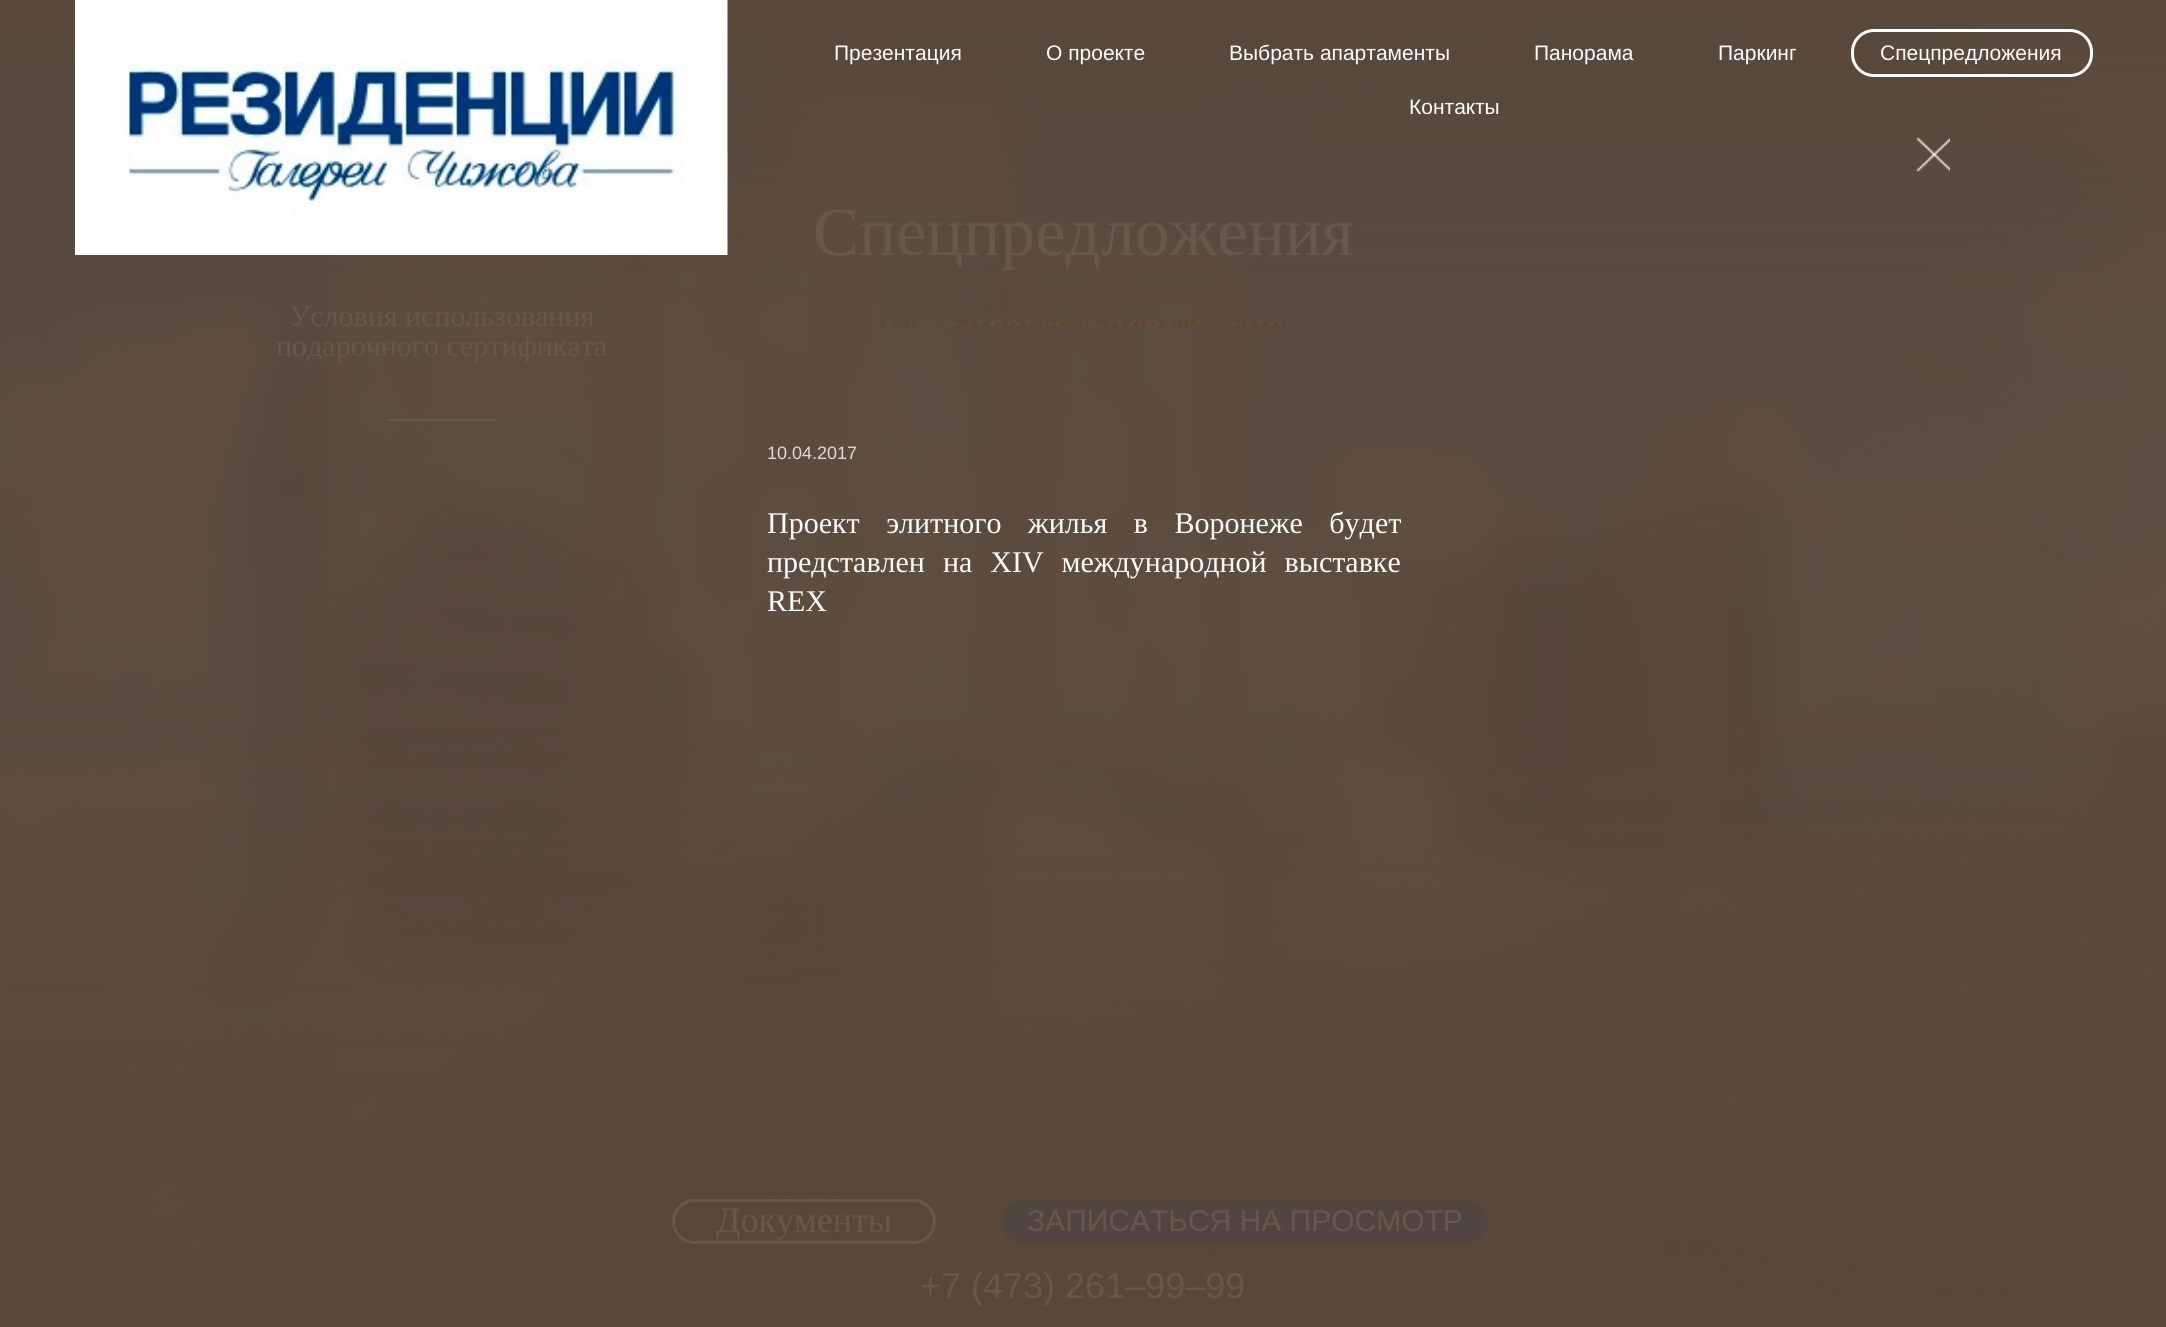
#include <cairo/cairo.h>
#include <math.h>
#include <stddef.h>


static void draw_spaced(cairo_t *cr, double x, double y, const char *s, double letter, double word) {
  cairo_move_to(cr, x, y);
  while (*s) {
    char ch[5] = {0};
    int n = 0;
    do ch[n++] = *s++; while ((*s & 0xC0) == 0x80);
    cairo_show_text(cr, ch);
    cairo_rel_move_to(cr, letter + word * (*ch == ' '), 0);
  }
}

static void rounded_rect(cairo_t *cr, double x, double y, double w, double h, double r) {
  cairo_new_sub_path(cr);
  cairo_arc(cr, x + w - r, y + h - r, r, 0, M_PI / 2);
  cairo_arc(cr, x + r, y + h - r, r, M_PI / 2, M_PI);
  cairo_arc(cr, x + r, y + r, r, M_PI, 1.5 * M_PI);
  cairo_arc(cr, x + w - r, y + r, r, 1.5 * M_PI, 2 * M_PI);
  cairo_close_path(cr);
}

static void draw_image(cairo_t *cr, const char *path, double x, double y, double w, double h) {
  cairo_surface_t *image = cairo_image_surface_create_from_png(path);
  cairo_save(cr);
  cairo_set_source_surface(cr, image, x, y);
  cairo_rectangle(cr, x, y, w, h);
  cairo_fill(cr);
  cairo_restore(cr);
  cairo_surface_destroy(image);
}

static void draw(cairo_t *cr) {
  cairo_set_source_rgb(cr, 1, 1, 1);
  cairo_paint(cr);
  draw_image(cr, "images/1.png", 0, 0, 2166, 1327);
  cairo_set_source_rgb(cr, 104 / 255.0, 88 / 255.0, 76 / 255.0);
  cairo_rectangle(cr, 387, 419, 110, 2);
  cairo_fill(cr);
  draw_image(cr, "images/6.png", 0, 693, 2166, 634);
  rounded_rect(cr, 673.5, 1200.5, 261, 42, 21);
  cairo_set_line_width(cr, 3);
  cairo_stroke(cr);
  cairo_set_source_rgb(cr, 81 / 255.0, 70 / 255.0, 63 / 255.0);
  rounded_rect(cr, 1001, 1199, 487, 45, 22.5);
  cairo_fill(cr);
  cairo_select_font_face(cr, "Liberation Serif", CAIRO_FONT_SLANT_NORMAL, CAIRO_FONT_WEIGHT_NORMAL);
  cairo_set_font_size(cr, 30);
  cairo_set_source_rgb(cr, 104 / 255.0, 88 / 255.0, 76 / 255.0);
  cairo_move_to(cr, 289, 326);
  cairo_show_text(cr, "Условия использования");
  draw_image(cr, "images/2.png", 0, 0, 2166, 326);
  draw_image(cr, "images/3.png", 75, 0, 653, 255);
  cairo_select_font_face(cr, "Liberation Sans", CAIRO_FONT_SLANT_NORMAL, CAIRO_FONT_WEIGHT_NORMAL);
  cairo_set_font_size(cr, 21);
  cairo_set_source_rgb(cr, 1, 1, 1);
  cairo_move_to(cr, 1409, 114);
  cairo_show_text(cr, "Контакты");
  rounded_rect(cr, 1852.5, 30.5, 239, 45, 21.5);
  cairo_stroke(cr);
  cairo_move_to(cr, 1880, 60);
  cairo_show_text(cr, "Спецпредложения");
  cairo_move_to(cr, 1718, 60);
  cairo_show_text(cr, "Паркинг");
  cairo_move_to(cr, 1534, 60);
  cairo_show_text(cr, "Панорама");
  cairo_move_to(cr, 1229, 60);
  cairo_show_text(cr, "Выбрать апартаменты");
  cairo_move_to(cr, 1046, 60);
  cairo_show_text(cr, "О проекте");
  cairo_move_to(cr, 834, 60);
  cairo_show_text(cr, "Презентация");
  draw_image(cr, "images/4.png", 880, 319, 406, 7);
  cairo_select_font_face(cr, "Liberation Serif", CAIRO_FONT_SLANT_NORMAL, CAIRO_FONT_WEIGHT_NORMAL);
  cairo_set_font_size(cr, 69);
  cairo_set_source_rgb(cr, 104 / 255.0, 88 / 255.0, 76 / 255.0);
  cairo_move_to(cr, 813, 255);
  cairo_show_text(cr, "Спецпредложения");
  cairo_set_font_size(cr, 30);
  cairo_move_to(cr, 276, 356);
  cairo_show_text(cr, "подарочного сертификата");
  draw_image(cr, "images/5.png", 1916, 137, 34, 35);
  cairo_select_font_face(cr, "Liberation Sans", CAIRO_FONT_SLANT_NORMAL, CAIRO_FONT_WEIGHT_NORMAL);
  cairo_set_font_size(cr, 18);
  cairo_set_source_rgb(cr, 222 / 255.0, 219 / 255.0, 216 / 255.0);
  cairo_move_to(cr, 767, 459);
  cairo_show_text(cr, "10.04.2017");
  cairo_select_font_face(cr, "Liberation Serif", CAIRO_FONT_SLANT_NORMAL, CAIRO_FONT_WEIGHT_NORMAL);
  cairo_set_font_size(cr, 30);
  cairo_set_source_rgb(cr, 1, 1, 1);
  draw_spaced(cr, 767, 533, "Проект элитного жилья в Воронеже будет", 0, 19);
  draw_spaced(cr, 767, 572, "представлен на XIV международной выставке", 0, 10.5);
  cairo_move_to(cr, 767, 611);
  cairo_show_text(cr, "REX");
  cairo_set_font_size(cr, 36);
  cairo_set_source_rgb(cr, 104 / 255.0, 88 / 255.0, 76 / 255.0);
  cairo_move_to(cr, 716, 1232);
  cairo_show_text(cr, "Документы");
  cairo_select_font_face(cr, "Liberation Sans", CAIRO_FONT_SLANT_NORMAL, CAIRO_FONT_WEIGHT_NORMAL);
  cairo_set_font_size(cr, 30);
  cairo_move_to(cr, 1027, 1231);
  cairo_show_text(cr, "ЗАПИСАТЬСЯ НА ПРОСМОТР");
  cairo_set_font_size(cr, 36);
  cairo_move_to(cr, 920, 1298);
  cairo_show_text(cr, "+7 (473) 261–99–99");
}

int main(void) {
  cairo_surface_t *surface = cairo_image_surface_create(CAIRO_FORMAT_RGB24, 2166, 1327);
  cairo_t *cr = cairo_create(surface);
  cairo_font_options_t *options = cairo_font_options_create();
  cairo_font_options_set_hint_metrics(options, CAIRO_HINT_METRICS_OFF);
  cairo_font_options_set_hint_style(options, CAIRO_HINT_STYLE_NONE);
  cairo_set_font_options(cr, options);
  cairo_set_miter_limit(cr, 4);
  draw(cr);
  cairo_surface_write_to_png(surface, "out.png");
  cairo_font_options_destroy(options);
  cairo_destroy(cr);
  cairo_surface_destroy(surface);
  return 0;
}
